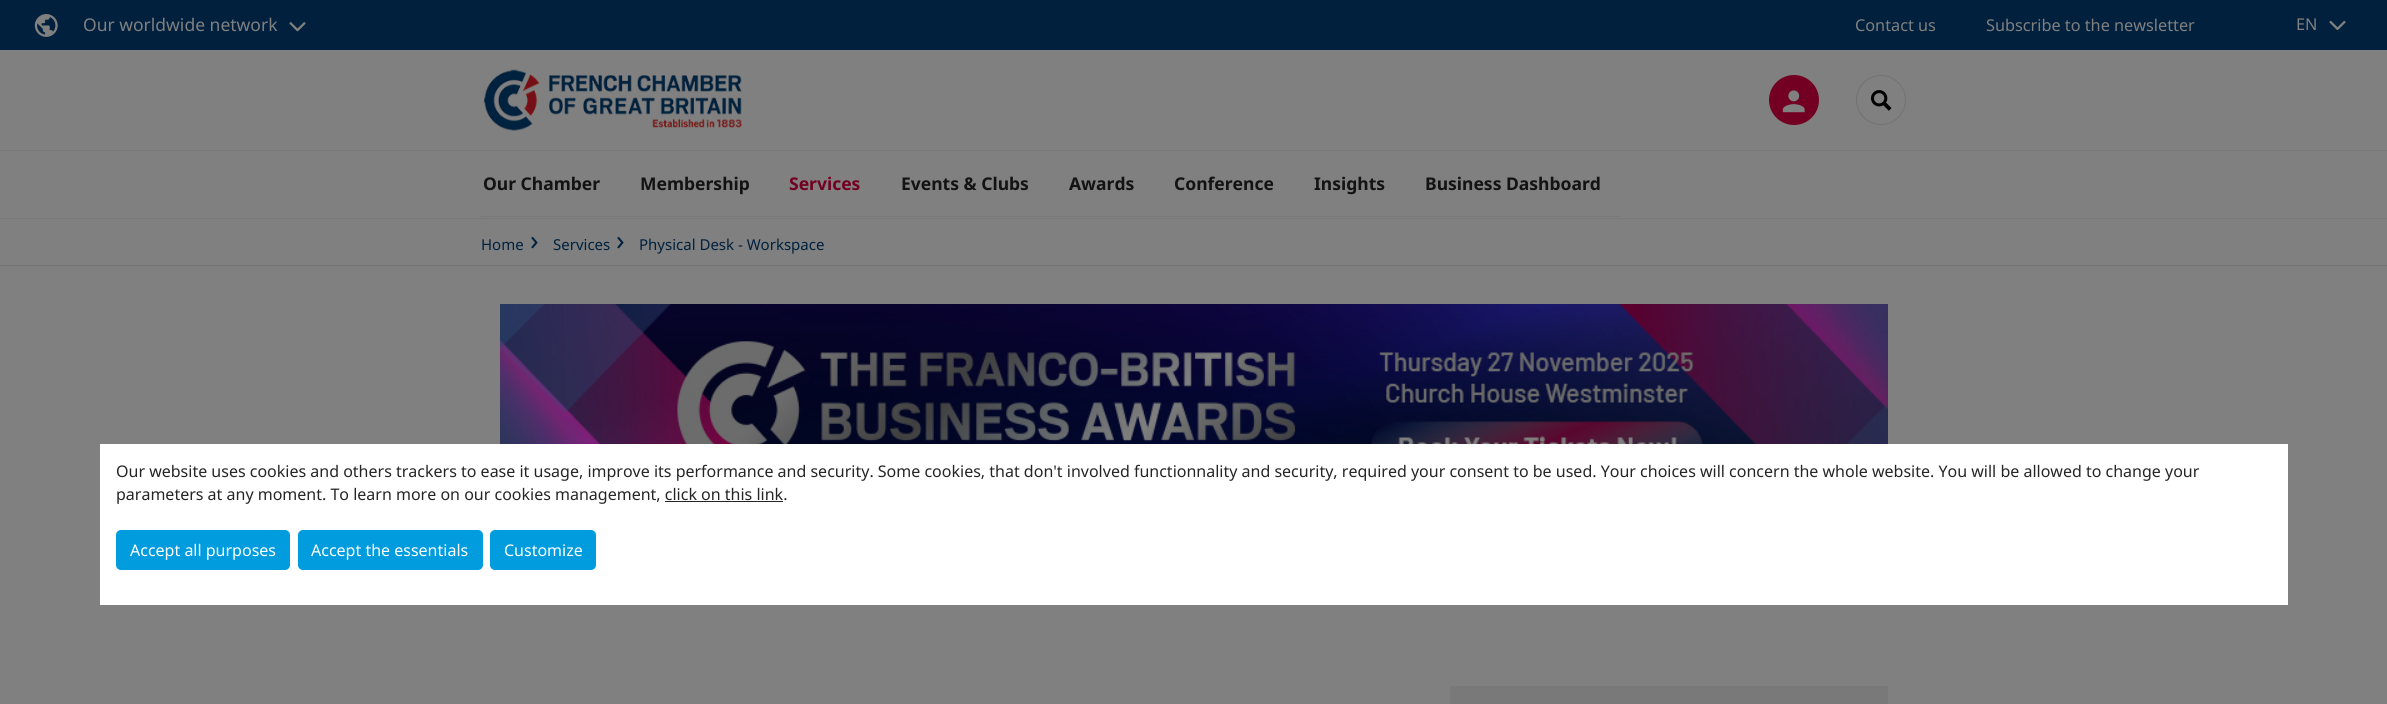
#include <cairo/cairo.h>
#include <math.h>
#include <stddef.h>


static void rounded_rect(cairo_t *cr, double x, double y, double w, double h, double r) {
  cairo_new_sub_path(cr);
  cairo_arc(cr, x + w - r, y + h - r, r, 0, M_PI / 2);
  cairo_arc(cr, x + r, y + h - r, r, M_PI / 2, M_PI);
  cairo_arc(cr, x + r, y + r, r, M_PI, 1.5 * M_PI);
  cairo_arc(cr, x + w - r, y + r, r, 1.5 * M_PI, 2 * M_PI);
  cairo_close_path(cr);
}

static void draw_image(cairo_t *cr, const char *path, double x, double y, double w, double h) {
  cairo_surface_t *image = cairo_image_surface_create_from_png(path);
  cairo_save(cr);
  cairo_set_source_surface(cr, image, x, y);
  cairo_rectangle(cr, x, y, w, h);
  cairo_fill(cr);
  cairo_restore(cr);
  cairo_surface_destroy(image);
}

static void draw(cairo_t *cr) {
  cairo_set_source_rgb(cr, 128 / 255.0, 128 / 255.0, 128 / 255.0);
  cairo_paint(cr);
  cairo_set_source_rgb(cr, 121 / 255.0, 121 / 255.0, 121 / 255.0);
  cairo_rectangle(cr, 0, 218, 2387, 1);
  cairo_fill(cr);
  cairo_set_source_rgb(cr, 0, 32 / 255.0, 61 / 255.0);
  cairo_rectangle(cr, 0, 0, 2387, 50);
  cairo_fill(cr);
  draw_image(cr, "images/1.png", 34, 14, 24, 23);
  draw_image(cr, "images/2.png", 289, 22, 17, 10);
  draw_image(cr, "images/3.png", 2329, 20, 17, 10);
  cairo_set_source_rgb(cr, 121 / 255.0, 121 / 255.0, 121 / 255.0);
  cairo_rectangle(cr, 0, 150, 2387, 1);
  cairo_fill(cr);
  draw_image(cr, "images/4.png", 484, 69, 258, 62);
  cairo_set_source_rgb(cr, 115 / 255.0, 0, 35 / 255.0);
  cairo_arc(cr, 1794, 100, 25, 0, 2 * M_PI);
  cairo_fill(cr);
  draw_image(cr, "images/5.png", 1782, 90, 23, 23);
  cairo_arc(cr, 1881, 100, 24.5, 0, 2 * M_PI);
  cairo_set_source_rgb(cr, 114 / 255.0, 114 / 255.0, 114 / 255.0);
  cairo_set_line_width(cr, 1);
  cairo_stroke(cr);
  draw_image(cr, "images/6.png", 1871, 90, 21, 21);
  cairo_set_source_rgb(cr, 121 / 255.0, 121 / 255.0, 121 / 255.0);
  cairo_rectangle(cr, 481, 216, 1140, 1);
  cairo_fill(cr);
  cairo_set_source_rgb(cr, 114 / 255.0, 114 / 255.0, 114 / 255.0);
  cairo_rectangle(cr, 0, 265, 2387, 1);
  cairo_fill(cr);
  draw_image(cr, "images/7.png", 500, 304, 1388, 140);
  cairo_set_source_rgb(cr, 121 / 255.0, 121 / 255.0, 121 / 255.0);
  cairo_rectangle(cr, 1450, 686, 438, 18);
  cairo_fill(cr);
  cairo_set_source_rgb(cr, 1, 1, 1);
  cairo_rectangle(cr, 100, 444, 2188, 161);
  cairo_fill(cr);
  cairo_set_source_rgb(cr, 37 / 255.0, 37 / 255.0, 37 / 255.0);
  cairo_rectangle(cr, 665, 501, 118, 1);
  cairo_fill(cr);
  cairo_set_source_rgb(cr, 0, 156 / 255.0, 222 / 255.0);
  rounded_rect(cr, 116, 530, 174, 40, 5);
  cairo_fill(cr);
  rounded_rect(cr, 298, 530, 185, 40, 5);
  cairo_fill(cr);
  rounded_rect(cr, 490, 530, 106, 40, 5);
  cairo_fill(cr);
  cairo_select_font_face(cr, "Noto Sans", CAIRO_FONT_SLANT_NORMAL, CAIRO_FONT_WEIGHT_NORMAL);
  cairo_set_font_size(cr, 17.5);
  cairo_set_source_rgb(cr, 128 / 255.0, 128 / 255.0, 128 / 255.0);
  cairo_move_to(cr, 83, 31);
  cairo_show_text(cr, "Our worldwide network");
  cairo_set_font_size(cr, 16.25);
  cairo_move_to(cr, 1855, 31);
  cairo_show_text(cr, "Contact us");
  cairo_move_to(cr, 1986, 31);
  cairo_show_text(cr, "Subscribe to the newsletter");
  cairo_move_to(cr, 2296, 30);
  cairo_show_text(cr, "EN");
  cairo_select_font_face(cr, "Noto Sans", CAIRO_FONT_SLANT_NORMAL, CAIRO_FONT_WEIGHT_BOLD);
  cairo_set_font_size(cr, 17.5);
  cairo_set_source_rgb(cr, 19 / 255.0, 19 / 255.0, 19 / 255.0);
  cairo_move_to(cr, 483, 190);
  cairo_show_text(cr, "Our Chamber");
  cairo_move_to(cr, 640, 190);
  cairo_show_text(cr, "Membership");
  cairo_set_source_rgb(cr, 115 / 255.0, 0, 35 / 255.0);
  cairo_move_to(cr, 789, 190);
  cairo_show_text(cr, "Services");
  cairo_set_source_rgb(cr, 19 / 255.0, 19 / 255.0, 19 / 255.0);
  cairo_move_to(cr, 901, 190);
  cairo_show_text(cr, "Events & Clubs");
  cairo_move_to(cr, 1069, 190);
  cairo_show_text(cr, "Awards");
  cairo_move_to(cr, 1174, 190);
  cairo_show_text(cr, "Conference");
  cairo_move_to(cr, 1314, 190);
  cairo_show_text(cr, "Insights");
  cairo_move_to(cr, 1425, 190);
  cairo_show_text(cr, "Business Dashboard");
  cairo_select_font_face(cr, "Noto Sans", CAIRO_FONT_SLANT_NORMAL, CAIRO_FONT_WEIGHT_NORMAL);
  cairo_set_font_size(cr, 15);
  cairo_set_source_rgb(cr, 0, 32 / 255.0, 61 / 255.0);
  cairo_move_to(cr, 481, 250);
  cairo_show_text(cr, "Home");
  cairo_set_font_size(cr, 28);
  cairo_move_to(cr, 530, 250);
  cairo_show_text(cr, "›");
  cairo_set_font_size(cr, 15);
  cairo_move_to(cr, 553, 250);
  cairo_show_text(cr, "Services");
  cairo_set_font_size(cr, 28);
  cairo_move_to(cr, 616, 250);
  cairo_show_text(cr, "›");
  cairo_set_font_size(cr, 15);
  cairo_move_to(cr, 639, 250);
  cairo_show_text(cr, "Physical Desk - Workspace");
  cairo_set_font_size(cr, 16);
  cairo_set_source_rgb(cr, 37 / 255.0, 37 / 255.0, 37 / 255.0);
  cairo_move_to(cr, 116, 477);
  cairo_show_text(cr, "Our website uses cookies and others trackers to ease it usage, improve its performance and security. Some cookies, that don't involved functionnality and security, required your consent to be used. Your choices will concern the whole website. You will be allowed to change your");
  cairo_move_to(cr, 116, 500);
  cairo_show_text(cr, "parameters at any moment. To learn more on our cookies management, click on this link.");
  cairo_set_source_rgb(cr, 1, 1, 1);
  cairo_move_to(cr, 130, 556);
  cairo_show_text(cr, "Accept all purposes");
  cairo_move_to(cr, 311, 556);
  cairo_show_text(cr, "Accept the essentials");
  cairo_move_to(cr, 504, 556);
  cairo_show_text(cr, "Customize");
}

int main(void) {
  cairo_surface_t *surface = cairo_image_surface_create(CAIRO_FORMAT_RGB24, 2387, 704);
  cairo_t *cr = cairo_create(surface);
  cairo_font_options_t *options = cairo_font_options_create();
  cairo_font_options_set_hint_metrics(options, CAIRO_HINT_METRICS_OFF);
  cairo_font_options_set_hint_style(options, CAIRO_HINT_STYLE_NONE);
  cairo_set_font_options(cr, options);
  cairo_set_miter_limit(cr, 4);
  draw(cr);
  cairo_surface_write_to_png(surface, "out.png");
  cairo_font_options_destroy(options);
  cairo_destroy(cr);
  cairo_surface_destroy(surface);
  return 0;
}
